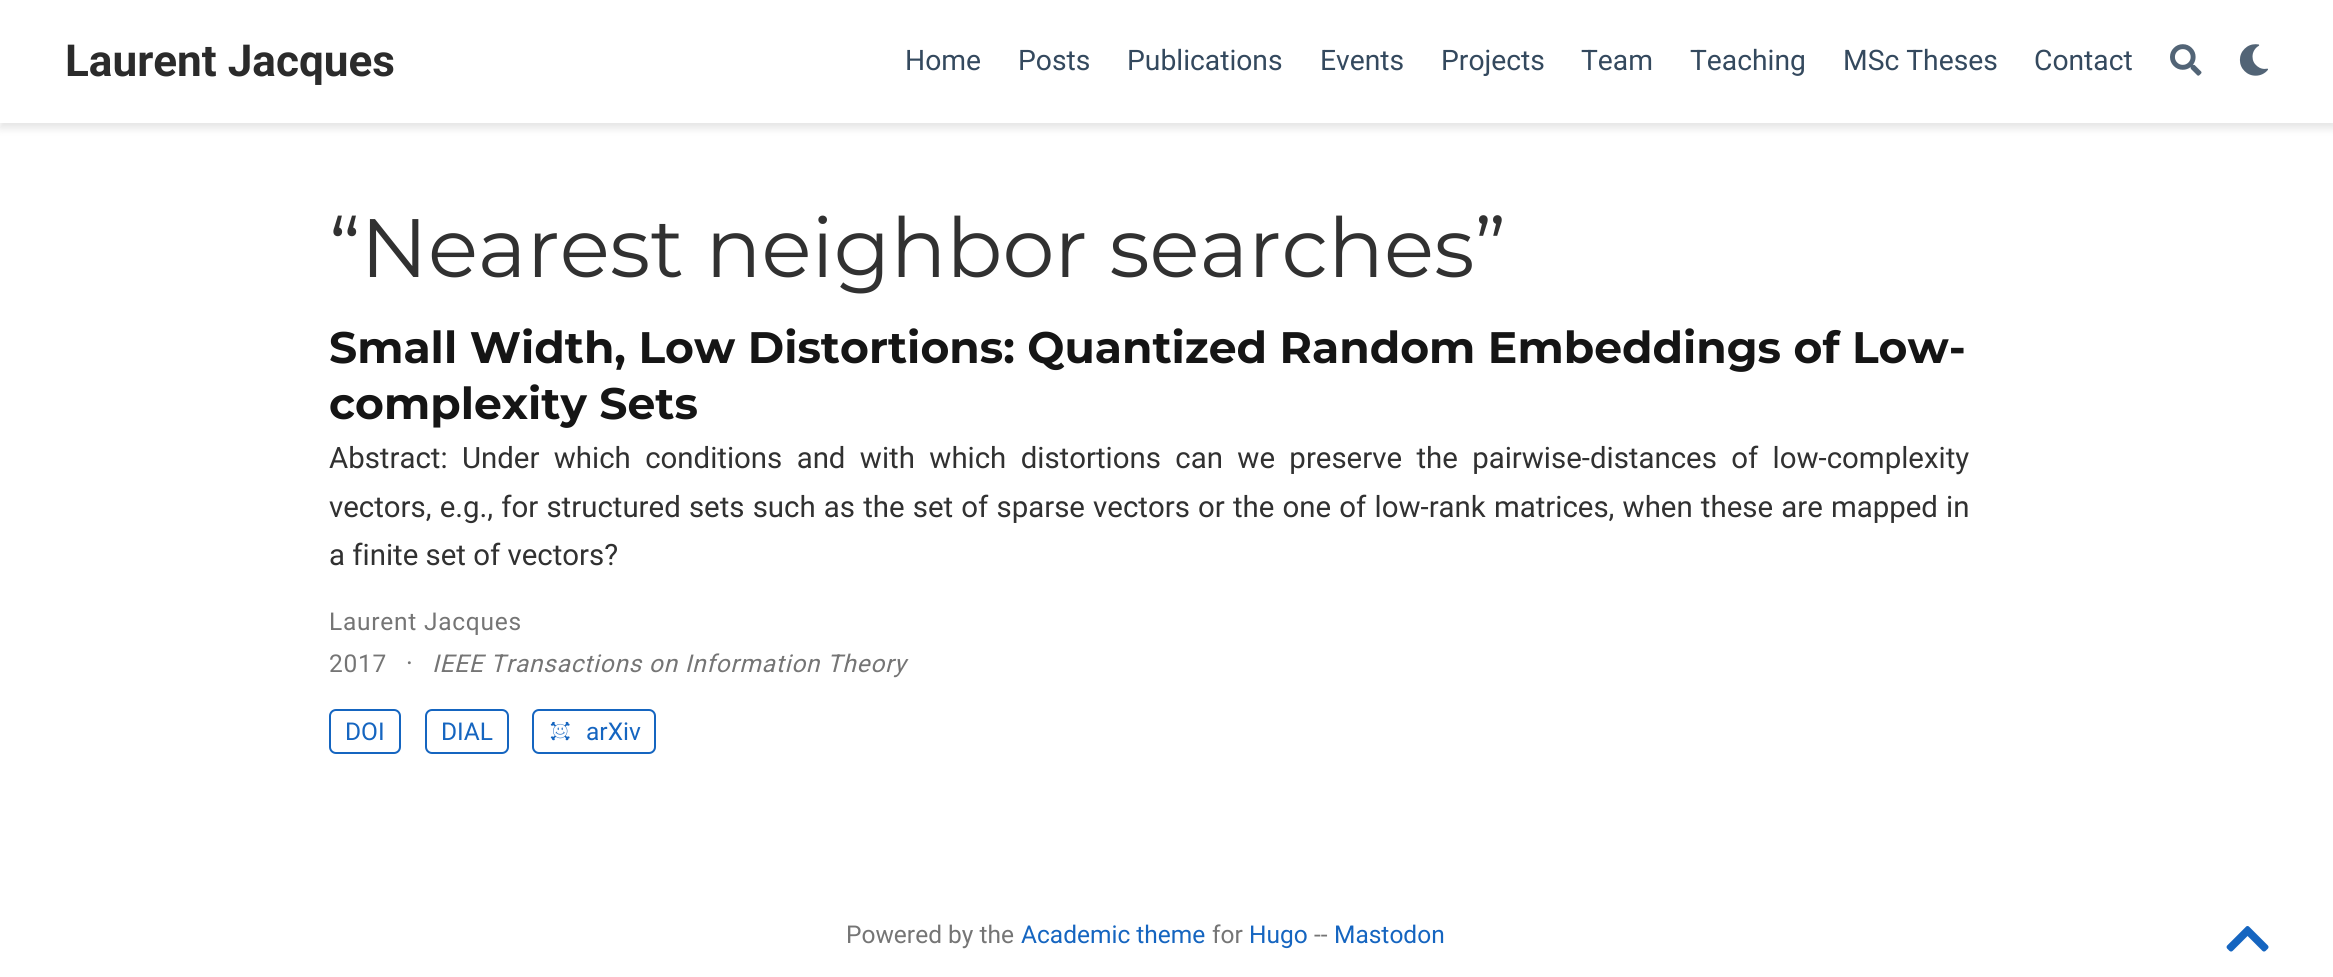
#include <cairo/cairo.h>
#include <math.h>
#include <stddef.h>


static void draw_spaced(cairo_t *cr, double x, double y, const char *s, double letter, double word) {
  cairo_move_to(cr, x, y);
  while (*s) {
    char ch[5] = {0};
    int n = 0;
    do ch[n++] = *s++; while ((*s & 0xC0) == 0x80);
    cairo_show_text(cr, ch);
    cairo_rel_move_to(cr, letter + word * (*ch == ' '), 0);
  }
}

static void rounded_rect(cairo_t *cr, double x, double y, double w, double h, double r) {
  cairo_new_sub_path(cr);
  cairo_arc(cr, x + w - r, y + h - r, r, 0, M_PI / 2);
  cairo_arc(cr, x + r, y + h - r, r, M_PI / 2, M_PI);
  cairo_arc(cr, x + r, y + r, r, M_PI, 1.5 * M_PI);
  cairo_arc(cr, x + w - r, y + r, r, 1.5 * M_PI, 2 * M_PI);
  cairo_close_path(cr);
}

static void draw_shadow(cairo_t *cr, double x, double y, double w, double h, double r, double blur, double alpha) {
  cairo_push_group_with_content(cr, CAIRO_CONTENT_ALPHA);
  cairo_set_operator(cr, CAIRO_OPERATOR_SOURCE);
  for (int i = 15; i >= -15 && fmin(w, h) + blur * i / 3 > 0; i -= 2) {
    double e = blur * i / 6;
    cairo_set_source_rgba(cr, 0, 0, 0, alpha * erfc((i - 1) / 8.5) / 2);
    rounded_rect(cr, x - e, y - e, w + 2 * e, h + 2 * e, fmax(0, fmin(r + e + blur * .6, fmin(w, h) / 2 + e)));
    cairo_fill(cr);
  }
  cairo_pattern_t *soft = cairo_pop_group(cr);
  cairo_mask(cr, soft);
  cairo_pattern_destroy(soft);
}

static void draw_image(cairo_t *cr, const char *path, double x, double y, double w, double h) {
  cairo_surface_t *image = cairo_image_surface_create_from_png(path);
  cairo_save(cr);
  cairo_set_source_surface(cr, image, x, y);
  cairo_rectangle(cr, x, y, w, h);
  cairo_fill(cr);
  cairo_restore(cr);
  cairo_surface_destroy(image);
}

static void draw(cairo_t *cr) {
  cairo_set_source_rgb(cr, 1, 1, 1);
  cairo_paint(cr);
  cairo_set_source_rgb(cr, 0, 0, 0);
  draw_shadow(cr, 0, 5, 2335, 123, 0, 4.5, 0.11);
  cairo_set_source_rgb(cr, 1, 1, 1);
  cairo_rectangle(cr, 0, 0, 2333, 123);
  cairo_fill(cr);
  draw_image(cr, "images/1.png", 2170, 44, 32, 32);
  draw_image(cr, "images/2.png", 2239, 44, 29, 32);
  rounded_rect(cr, 330, 710, 70, 43, 6);
  cairo_set_source_rgb(cr, 21 / 255.0, 101 / 255.0, 192 / 255.0);
  cairo_stroke(cr);
  rounded_rect(cr, 426, 710, 82, 43, 6);
  cairo_stroke(cr);
  rounded_rect(cr, 533, 710, 122, 43, 6);
  cairo_stroke(cr);
  draw_image(cr, "images/3.png", 550, 721, 20, 20);
  draw_image(cr, "images/4.png", 2226, 926, 43, 26);
  cairo_select_font_face(cr, "Roboto", CAIRO_FONT_SLANT_NORMAL, CAIRO_FONT_WEIGHT_BOLD);
  cairo_set_font_size(cr, 44.1);
  cairo_set_source_rgb(cr, 43 / 255.0, 43 / 255.0, 43 / 255.0);
  cairo_move_to(cr, 65, 76);
  cairo_show_text(cr, "Laurent Jacques");
  cairo_select_font_face(cr, "Roboto", CAIRO_FONT_SLANT_NORMAL, CAIRO_FONT_WEIGHT_NORMAL);
  cairo_set_font_size(cr, 28.25);
  cairo_set_source_rgb(cr, 52 / 255.0, 73 / 255.0, 94 / 255.0);
  cairo_move_to(cr, 905, 70);
  cairo_show_text(cr, "Home");
  cairo_move_to(cr, 1018, 70);
  cairo_show_text(cr, "Posts");
  cairo_move_to(cr, 1127, 70);
  cairo_show_text(cr, "Publications");
  cairo_move_to(cr, 1320, 70);
  cairo_show_text(cr, "Events");
  cairo_move_to(cr, 1441, 70);
  cairo_show_text(cr, "Projects");
  cairo_move_to(cr, 1581, 70);
  cairo_show_text(cr, "Team");
  cairo_move_to(cr, 1690, 70);
  cairo_show_text(cr, "Teaching");
  cairo_move_to(cr, 1843, 70);
  cairo_show_text(cr, "MSc Theses");
  cairo_move_to(cr, 2034, 70);
  cairo_show_text(cr, "Contact");
  cairo_select_font_face(cr, "Montserrat", CAIRO_FONT_SLANT_NORMAL, CAIRO_FONT_WEIGHT_NORMAL);
  cairo_set_font_size(cr, 82.75);
  cairo_set_source_rgb(cr, 49 / 255.0, 49 / 255.0, 49 / 255.0);
  cairo_move_to(cr, 329, 277);
  cairo_show_text(cr, "“Nearest neighbor searches”");
  cairo_select_font_face(cr, "Montserrat", CAIRO_FONT_SLANT_NORMAL, CAIRO_FONT_WEIGHT_BOLD);
  cairo_set_font_size(cr, 44.1);
  cairo_set_source_rgb(cr, 21 / 255.0, 21 / 255.0, 21 / 255.0);
  cairo_move_to(cr, 329, 363);
  cairo_show_text(cr, "Small Width, Low Distortions: Quantized Random Embeddings of Low-");
  cairo_move_to(cr, 329, 419);
  cairo_show_text(cr, "complexity Sets");
  cairo_select_font_face(cr, "Roboto", CAIRO_FONT_SLANT_NORMAL, CAIRO_FONT_WEIGHT_NORMAL);
  cairo_set_font_size(cr, 29.4);
  cairo_set_source_rgb(cr, 49 / 255.0, 49 / 255.0, 49 / 255.0);
  draw_spaced(cr, 329, 468, "Abstract: Under which conditions and with which distortions can we preserve the pairwise-distances of low-complexity", 0, 7.1);
  draw_spaced(cr, 329, 517, "vectors, e.g., for structured sets such as the set of sparse vectors or the one of low-rank matrices, when these are mapped in", 0, 0.9);
  cairo_move_to(cr, 329, 565);
  cairo_show_text(cr, "a finite set of vectors?");
  cairo_set_font_size(cr, 24.5);
  cairo_set_source_rgb(cr, 117 / 255.0, 117 / 255.0, 117 / 255.0);
  draw_spaced(cr, 329, 630, "Laurent Jacques", 0.75, 0);
  draw_spaced(cr, 329, 672, "2017", 0.75, 0);
  cairo_set_font_size(cr, 26);
  draw_spaced(cr, 406, 672, "·", 0.75, 0);
  cairo_select_font_face(cr, "Roboto", CAIRO_FONT_SLANT_ITALIC, CAIRO_FONT_WEIGHT_NORMAL);
  cairo_set_font_size(cr, 24.5);
  draw_spaced(cr, 432, 672, "IEEE Transactions on Information Theory", 0.75, 0);
  cairo_select_font_face(cr, "Roboto", CAIRO_FONT_SLANT_NORMAL, CAIRO_FONT_WEIGHT_NORMAL);
  cairo_set_source_rgb(cr, 21 / 255.0, 101 / 255.0, 192 / 255.0);
  cairo_move_to(cr, 345, 740);
  cairo_show_text(cr, "DOI");
  cairo_move_to(cr, 441, 740);
  cairo_show_text(cr, "DIAL");
  cairo_move_to(cr, 586, 740);
  cairo_show_text(cr, "arXiv");
  cairo_set_source_rgb(cr, 117 / 255.0, 117 / 255.0, 117 / 255.0);
  cairo_move_to(cr, 846, 943);
  cairo_show_text(cr, "Powered by the");
  cairo_set_source_rgb(cr, 21 / 255.0, 101 / 255.0, 192 / 255.0);
  cairo_move_to(cr, 1021, 943);
  cairo_show_text(cr, "Academic theme");
  cairo_set_source_rgb(cr, 117 / 255.0, 117 / 255.0, 117 / 255.0);
  cairo_move_to(cr, 1212, 943);
  cairo_show_text(cr, "for");
  cairo_set_source_rgb(cr, 21 / 255.0, 101 / 255.0, 192 / 255.0);
  cairo_move_to(cr, 1249, 943);
  cairo_show_text(cr, "Hugo");
  cairo_set_source_rgb(cr, 117 / 255.0, 117 / 255.0, 117 / 255.0);
  cairo_move_to(cr, 1314, 943);
  cairo_show_text(cr, "--");
  cairo_set_source_rgb(cr, 21 / 255.0, 101 / 255.0, 192 / 255.0);
  cairo_move_to(cr, 1334, 943);
  cairo_show_text(cr, "Mastodon");
}

int main(void) {
  cairo_surface_t *surface = cairo_image_surface_create(CAIRO_FORMAT_RGB24, 2333, 977);
  cairo_t *cr = cairo_create(surface);
  cairo_font_options_t *options = cairo_font_options_create();
  cairo_font_options_set_hint_metrics(options, CAIRO_HINT_METRICS_OFF);
  cairo_font_options_set_hint_style(options, CAIRO_HINT_STYLE_NONE);
  cairo_set_font_options(cr, options);
  cairo_set_miter_limit(cr, 4);
  draw(cr);
  cairo_surface_write_to_png(surface, "out.png");
  cairo_font_options_destroy(options);
  cairo_destroy(cr);
  cairo_surface_destroy(surface);
  return 0;
}
